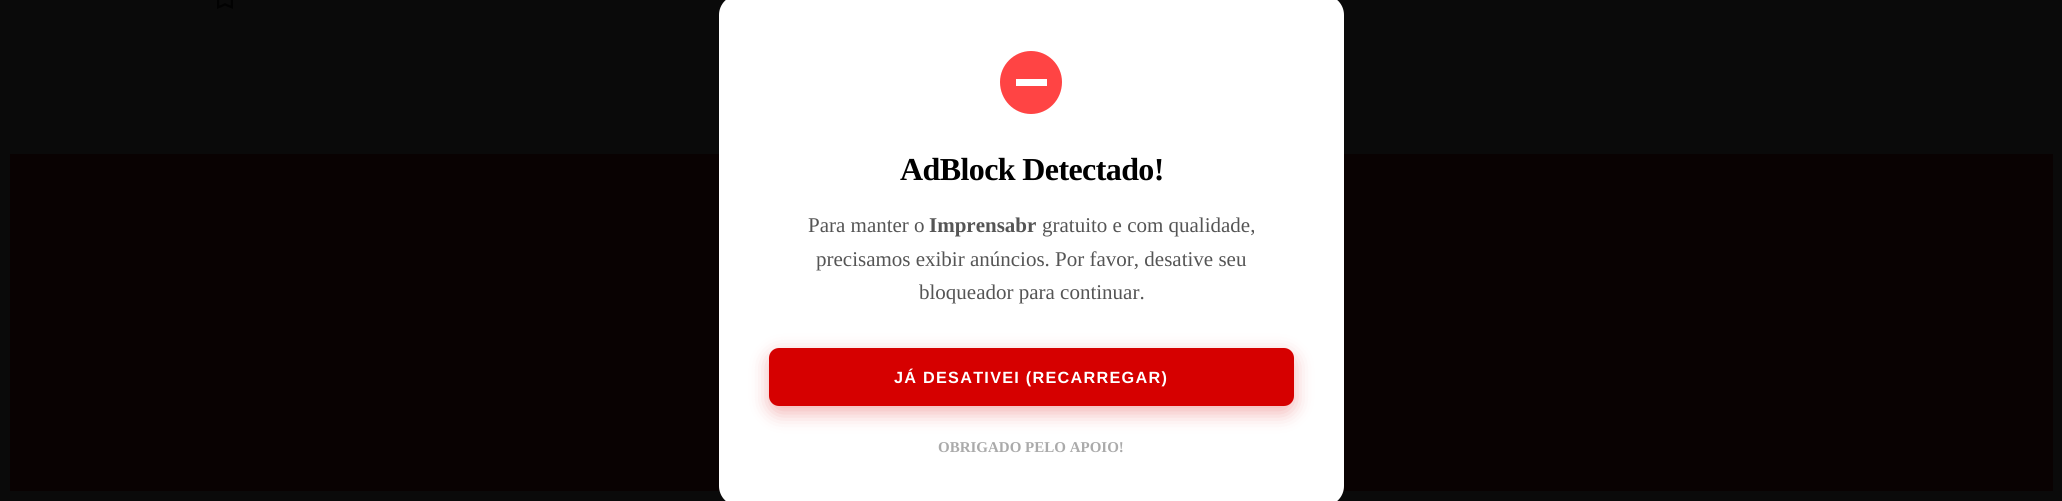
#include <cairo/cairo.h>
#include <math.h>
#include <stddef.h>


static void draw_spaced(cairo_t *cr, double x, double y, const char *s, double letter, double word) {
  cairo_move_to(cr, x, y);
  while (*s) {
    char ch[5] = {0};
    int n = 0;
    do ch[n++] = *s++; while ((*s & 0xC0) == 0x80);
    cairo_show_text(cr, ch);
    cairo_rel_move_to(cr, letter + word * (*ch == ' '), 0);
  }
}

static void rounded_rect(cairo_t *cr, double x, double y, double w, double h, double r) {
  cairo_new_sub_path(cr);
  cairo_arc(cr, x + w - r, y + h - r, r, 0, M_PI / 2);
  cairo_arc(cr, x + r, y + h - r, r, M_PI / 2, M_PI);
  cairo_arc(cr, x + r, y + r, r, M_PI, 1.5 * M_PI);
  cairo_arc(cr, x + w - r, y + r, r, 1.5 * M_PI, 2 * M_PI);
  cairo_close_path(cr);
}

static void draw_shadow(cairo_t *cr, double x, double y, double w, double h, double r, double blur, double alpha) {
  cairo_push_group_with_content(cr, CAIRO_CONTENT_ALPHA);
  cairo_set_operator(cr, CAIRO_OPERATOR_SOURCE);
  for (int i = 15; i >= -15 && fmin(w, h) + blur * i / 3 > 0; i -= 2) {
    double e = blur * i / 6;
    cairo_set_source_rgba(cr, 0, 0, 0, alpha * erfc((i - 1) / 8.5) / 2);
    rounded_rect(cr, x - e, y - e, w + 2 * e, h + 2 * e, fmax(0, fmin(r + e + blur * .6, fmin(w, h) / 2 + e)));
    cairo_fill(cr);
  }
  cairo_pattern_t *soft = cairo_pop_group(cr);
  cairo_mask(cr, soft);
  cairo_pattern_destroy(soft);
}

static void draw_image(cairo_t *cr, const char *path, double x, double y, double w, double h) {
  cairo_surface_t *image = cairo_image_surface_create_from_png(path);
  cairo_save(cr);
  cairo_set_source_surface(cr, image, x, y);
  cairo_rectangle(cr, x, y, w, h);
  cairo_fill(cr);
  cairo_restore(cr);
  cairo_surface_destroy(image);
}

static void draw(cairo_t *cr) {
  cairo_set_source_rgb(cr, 10 / 255.0, 10 / 255.0, 10 / 255.0);
  cairo_paint(cr);
  draw_image(cr, "images/1.png", 217, 0, 16, 9);
  cairo_set_source_rgb(cr, 9 / 255.0, 2 / 255.0, 2 / 255.0);
  cairo_rectangle(cr, 10, 154, 2043, 337);
  cairo_fill(cr);
  cairo_set_source_rgb(cr, 1, 1, 1);
  rounded_rect(cr, 719, -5, 625, 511, 20);
  cairo_fill(cr);
  cairo_set_source_rgb(cr, 1, 68 / 255.0, 68 / 255.0);
  cairo_new_path(cr);
  cairo_move_to(cr, 1031, 51);
  cairo_curve_to(cr, 1014, 51, 1000, 65, 1000, 82);
  cairo_curve_to(cr, 1000, 100, 1014, 114, 1031, 114);
  cairo_curve_to(cr, 1048, 114, 1062, 100, 1062, 82);
  cairo_curve_to(cr, 1062, 65, 1048, 51, 1031, 51);
  cairo_close_path(cr);
  cairo_move_to(cr, 1047, 86);
  cairo_line_to(cr, 1016, 86);
  cairo_line_to(cr, 1016, 79);
  cairo_line_to(cr, 1047, 79);
  cairo_close_path(cr);
  cairo_fill(cr);
  cairo_set_source_rgb(cr, 214 / 255.0, 0, 0);
  draw_shadow(cr, 769, 354, 525, 59, 10, 9.5, 0.3);
  cairo_set_source_rgb(cr, 214 / 255.0, 0, 0);
  rounded_rect(cr, 769, 348, 525, 58, 10);
  cairo_fill(cr);
  cairo_select_font_face(cr, "Liberation Serif", CAIRO_FONT_SLANT_NORMAL, CAIRO_FONT_WEIGHT_BOLD);
  cairo_set_font_size(cr, 32);
  cairo_set_source_rgb(cr, 0, 0, 0);
  draw_spaced(cr, 900, 180, "AdBlock Detectado!", -0.6, 0);
  cairo_select_font_face(cr, "Liberation Serif", CAIRO_FONT_SLANT_NORMAL, CAIRO_FONT_WEIGHT_NORMAL);
  cairo_set_font_size(cr, 21);
  cairo_set_source_rgb(cr, 85 / 255.0, 85 / 255.0, 85 / 255.0);
  cairo_move_to(cr, 808, 232);
  cairo_show_text(cr, "Para manter o");
  cairo_select_font_face(cr, "Liberation Serif", CAIRO_FONT_SLANT_NORMAL, CAIRO_FONT_WEIGHT_BOLD);
  cairo_move_to(cr, 929, 232);
  cairo_show_text(cr, "Imprensabr");
  cairo_select_font_face(cr, "Liberation Serif", CAIRO_FONT_SLANT_NORMAL, CAIRO_FONT_WEIGHT_NORMAL);
  cairo_move_to(cr, 1042, 232);
  cairo_show_text(cr, "gratuito e com qualidade,");
  cairo_move_to(cr, 816, 266);
  cairo_show_text(cr, "precisamos exibir anúncios. Por favor, desative seu");
  cairo_move_to(cr, 919, 299);
  cairo_show_text(cr, "bloqueador para continuar.");
  cairo_select_font_face(cr, "Liberation Sans", CAIRO_FONT_SLANT_NORMAL, CAIRO_FONT_WEIGHT_BOLD);
  cairo_set_font_size(cr, 16.25);
  cairo_set_source_rgb(cr, 1, 1, 1);
  draw_spaced(cr, 894, 383, "JÁ DESATIVEI (RECARREGAR)", 1.25, 0);
  cairo_select_font_face(cr, "Liberation Serif", CAIRO_FONT_SLANT_NORMAL, CAIRO_FONT_WEIGHT_BOLD);
  cairo_set_font_size(cr, 15);
  cairo_set_source_rgb(cr, 170 / 255.0, 170 / 255.0, 170 / 255.0);
  cairo_move_to(cr, 938, 452);
  cairo_show_text(cr, "OBRIGADO PELO APOIO!");
}

int main(void) {
  cairo_surface_t *surface = cairo_image_surface_create(CAIRO_FORMAT_RGB24, 2062, 501);
  cairo_t *cr = cairo_create(surface);
  cairo_font_options_t *options = cairo_font_options_create();
  cairo_font_options_set_hint_metrics(options, CAIRO_HINT_METRICS_OFF);
  cairo_font_options_set_hint_style(options, CAIRO_HINT_STYLE_NONE);
  cairo_set_font_options(cr, options);
  cairo_set_miter_limit(cr, 4);
  draw(cr);
  cairo_surface_write_to_png(surface, "out.png");
  cairo_font_options_destroy(options);
  cairo_destroy(cr);
  cairo_surface_destroy(surface);
  return 0;
}
